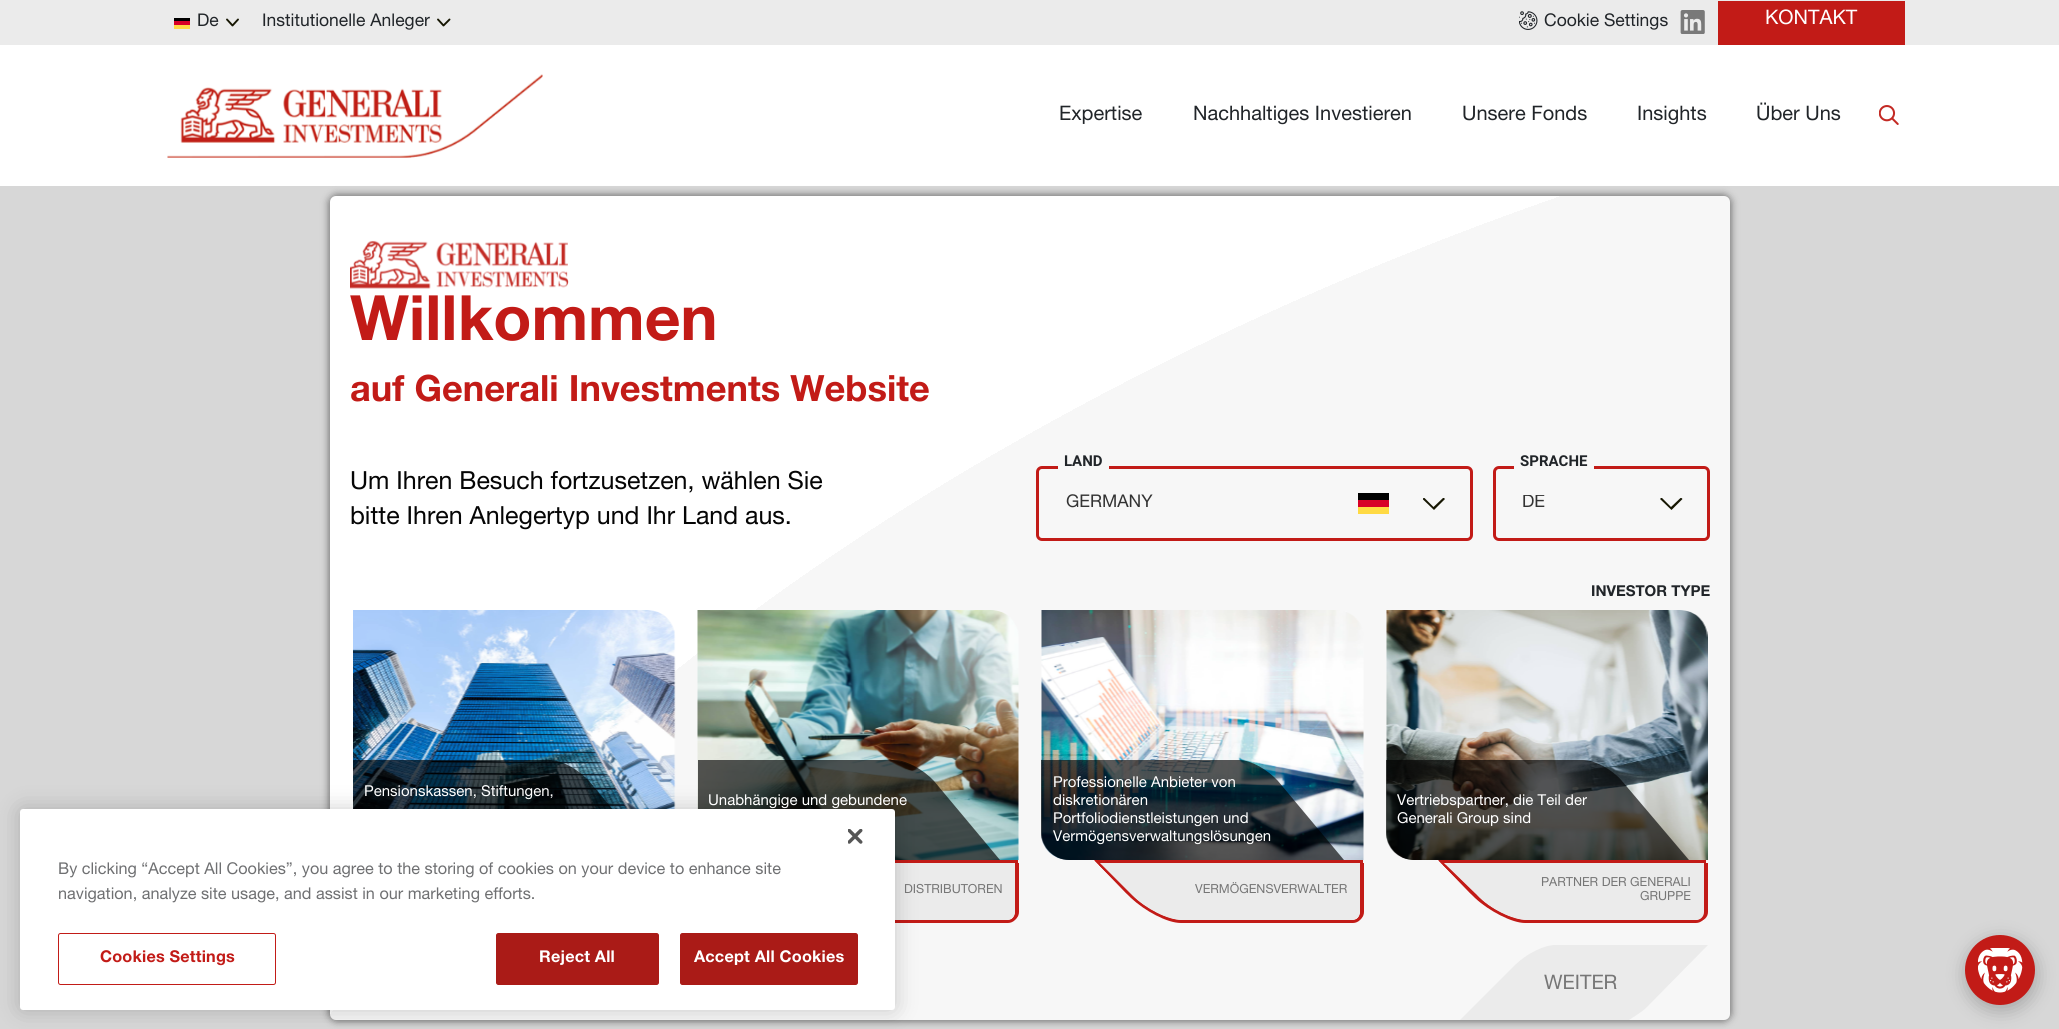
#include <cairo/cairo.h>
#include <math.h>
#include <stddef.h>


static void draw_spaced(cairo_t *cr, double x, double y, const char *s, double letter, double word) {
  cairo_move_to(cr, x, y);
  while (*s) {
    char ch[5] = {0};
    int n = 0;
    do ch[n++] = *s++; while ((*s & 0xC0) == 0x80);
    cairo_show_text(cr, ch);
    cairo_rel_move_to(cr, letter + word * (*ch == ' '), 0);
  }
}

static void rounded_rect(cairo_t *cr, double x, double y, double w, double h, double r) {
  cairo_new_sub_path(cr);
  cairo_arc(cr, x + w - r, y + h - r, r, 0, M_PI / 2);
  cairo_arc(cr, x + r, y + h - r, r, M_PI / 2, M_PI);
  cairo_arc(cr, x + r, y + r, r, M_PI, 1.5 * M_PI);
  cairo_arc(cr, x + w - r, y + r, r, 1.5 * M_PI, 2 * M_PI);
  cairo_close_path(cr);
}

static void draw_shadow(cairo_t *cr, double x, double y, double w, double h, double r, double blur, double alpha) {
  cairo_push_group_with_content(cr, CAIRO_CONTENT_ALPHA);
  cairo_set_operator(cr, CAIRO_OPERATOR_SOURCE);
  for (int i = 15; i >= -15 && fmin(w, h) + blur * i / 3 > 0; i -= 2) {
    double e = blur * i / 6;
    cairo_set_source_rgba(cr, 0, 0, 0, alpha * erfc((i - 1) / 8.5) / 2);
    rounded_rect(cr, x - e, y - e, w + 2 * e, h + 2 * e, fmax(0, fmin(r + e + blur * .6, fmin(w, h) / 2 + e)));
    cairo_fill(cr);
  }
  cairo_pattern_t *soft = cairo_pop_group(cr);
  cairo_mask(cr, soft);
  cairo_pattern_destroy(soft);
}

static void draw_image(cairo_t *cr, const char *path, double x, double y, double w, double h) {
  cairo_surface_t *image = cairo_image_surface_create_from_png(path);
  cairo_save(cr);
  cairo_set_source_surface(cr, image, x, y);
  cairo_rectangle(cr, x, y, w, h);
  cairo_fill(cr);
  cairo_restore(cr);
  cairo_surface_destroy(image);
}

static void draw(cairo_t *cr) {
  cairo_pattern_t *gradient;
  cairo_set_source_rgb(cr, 1, 1, 1);
  cairo_paint(cr);
  cairo_set_source_rgb(cr, 235 / 255.0, 235 / 255.0, 235 / 255.0);
  cairo_rectangle(cr, 0, 0, 2059, 45);
  cairo_fill(cr);
  draw_image(cr, "images/1.png", 1519, 11, 19, 19);
  draw_image(cr, "images/2.png", 1680, 10, 25, 24);
  cairo_set_source_rgb(cr, 194 / 255.0, 27 / 255.0, 23 / 255.0);
  cairo_rectangle(cr, 1718, 1, 187, 44);
  cairo_fill(cr);
  cairo_set_source_rgb(cr, 216 / 255.0, 0, 39 / 255.0);
  cairo_rectangle(cr, 174, 21, 16, 4);
  cairo_fill(cr);
  cairo_set_source_rgb(cr, 0, 0, 0);
  cairo_rectangle(cr, 174, 18, 16, 3);
  cairo_fill(cr);
  cairo_set_source_rgb(cr, 1, 218 / 255.0, 68 / 255.0);
  cairo_rectangle(cr, 174, 25, 16, 4);
  cairo_fill(cr);
  cairo_new_path(cr);
  cairo_move_to(cr, 227, 19.5);
  cairo_line_to(cr, 232.5, 25.5);
  cairo_line_to(cr, 238, 19.5);
  cairo_set_source_rgb(cr, 22 / 255.0, 22 / 255.0, 2 / 255.0);
  cairo_set_line_width(cr, 1.9);
  cairo_set_line_cap(cr, CAIRO_LINE_CAP_ROUND);
  cairo_set_line_join(cr, CAIRO_LINE_JOIN_ROUND);
  cairo_stroke(cr);
  cairo_new_path(cr);
  cairo_move_to(cr, 438, 19.5);
  cairo_line_to(cr, 443.5, 25.5);
  cairo_line_to(cr, 449.5, 19.5);
  cairo_stroke(cr);
  cairo_set_source_rgb(cr, 215 / 255.0, 215 / 255.0, 215 / 255.0);
  cairo_rectangle(cr, 0, 186, 2059, 843);
  cairo_fill(cr);
  cairo_set_source_rgb(cr, 0, 0, 0);
  draw_shadow(cr, 329, 195, 1402, 826, 8, 4, 0.5);
  gradient = cairo_pattern_create_radial(0, 0, 0, 0, 0, 1);
  cairo_pattern_set_matrix(gradient, &(cairo_matrix_t){1.0 / 3663, 0, 0, 1.0 / 2458, -1.0 * 2920 / 3663, -1.0 * 1934 / 2458});
  cairo_pattern_add_color_stop_rgba(gradient, 0.8, 247 / 255.0, 247 / 255.0, 247 / 255.0, 1);
  cairo_pattern_add_color_stop_rgba(gradient, 0.8, 1, 1, 1, 1);
  cairo_set_source(cr, gradient);
  cairo_pattern_destroy(gradient);
  rounded_rect(cr, 330, 196, 1400, 824, 6);
  cairo_fill(cr);
  draw_image(cr, "images/3.png", 350, 240, 219, 49);
  rounded_rect(cr, 1037.5, 467.5, 434, 72, 4.5);
  cairo_set_source_rgb(cr, 194 / 255.0, 27 / 255.0, 23 / 255.0);
  cairo_set_line_width(cr, 3);
  cairo_set_line_cap(cr, CAIRO_LINE_CAP_BUTT);
  cairo_set_line_join(cr, CAIRO_LINE_JOIN_MITER);
  cairo_stroke(cr);
  cairo_set_source_rgb(cr, 247 / 255.0, 247 / 255.0, 247 / 255.0);
  cairo_rectangle(cr, 1058, 466, 51, 3);
  cairo_fill(cr);
  cairo_set_source_rgb(cr, 216 / 255.0, 0, 39 / 255.0);
  cairo_rectangle(cr, 1358, 500, 31, 7);
  cairo_fill(cr);
  cairo_set_source_rgb(cr, 0, 0, 0);
  cairo_rectangle(cr, 1358, 493, 31, 7);
  cairo_fill(cr);
  cairo_set_source_rgb(cr, 1, 218 / 255.0, 68 / 255.0);
  cairo_rectangle(cr, 1358, 507, 31, 7);
  cairo_fill(cr);
  cairo_save(cr);
  cairo_rectangle(cr, 1423, 498, 22, 12);
  cairo_clip(cr);
  cairo_set_source_rgb(cr, 22 / 255.0, 22 / 255.0, 2 / 255.0);
  cairo_set_fill_rule(cr, CAIRO_FILL_RULE_EVEN_ODD);
  cairo_new_path(cr);
  cairo_move_to(cr, 1422.5, 499);
  cairo_line_to(cr, 1424, 497.5);
  cairo_line_to(cr, 1433.5, 507);
  cairo_line_to(cr, 1443.5, 497.5);
  cairo_line_to(cr, 1445, 499);
  cairo_line_to(cr, 1434, 510);
  cairo_close_path(cr);
  cairo_fill(cr);
  cairo_restore(cr);
  rounded_rect(cr, 1494.5, 467.5, 214, 72, 4.5);
  cairo_set_source_rgb(cr, 194 / 255.0, 27 / 255.0, 23 / 255.0);
  cairo_stroke(cr);
  cairo_set_source_rgb(cr, 247 / 255.0, 247 / 255.0, 247 / 255.0);
  cairo_rectangle(cr, 1514, 466, 80, 3);
  cairo_fill(cr);
  cairo_save(cr);
  cairo_rectangle(cr, 1660, 498, 23, 12);
  cairo_clip(cr);
  cairo_set_source_rgb(cr, 22 / 255.0, 22 / 255.0, 2 / 255.0);
  cairo_set_fill_rule(cr, CAIRO_FILL_RULE_EVEN_ODD);
  cairo_new_path(cr);
  cairo_move_to(cr, 1660, 499);
  cairo_line_to(cr, 1661.5, 497.5);
  cairo_line_to(cr, 1671, 507);
  cairo_line_to(cr, 1681, 497.5);
  cairo_line_to(cr, 1682.5, 499);
  cairo_line_to(cr, 1671.5, 510);
  cairo_close_path(cr);
  cairo_fill(cr);
  cairo_restore(cr);
  draw_image(cr, "images/4.png", 353, 610, 323, 199);
  cairo_set_source_rgba(cr, 0, 0, 0, 0.65);
  cairo_new_path(cr);
  cairo_move_to(cr, 381, 860);
  cairo_line_to(cr, 655, 860);
  cairo_line_to(cr, 589, 781);
  cairo_curve_to(cr, 579, 770, 562, 760, 550, 760);
  cairo_line_to(cr, 353, 760);
  cairo_line_to(cr, 353, 832);
  cairo_curve_to(cr, 353, 847, 366, 860, 381, 860);
  cairo_close_path(cr);
  cairo_fill(cr);
  draw_image(cr, "images/5.png", 1041, 610, 323, 250);
  cairo_new_path(cr);
  cairo_move_to(cr, 1069, 860);
  cairo_line_to(cr, 1344, 860);
  cairo_line_to(cr, 1278, 781);
  cairo_curve_to(cr, 1268, 770, 1251, 760, 1239, 760);
  cairo_line_to(cr, 1041, 760);
  cairo_line_to(cr, 1041, 832);
  cairo_curve_to(cr, 1041, 847, 1054, 860, 1069, 860);
  cairo_close_path(cr);
  cairo_fill(cr);
  cairo_set_source_rgb(cr, 194 / 255.0, 27 / 255.0, 23 / 255.0);
  cairo_new_path(cr);
  cairo_move_to(cr, 1194, 919);
  cairo_curve_to(cr, 1197, 920, 1200, 921, 1204, 921);
  cairo_line_to(cr, 1355, 921);
  cairo_curve_to(cr, 1360, 921, 1364, 917, 1364, 912);
  cairo_line_to(cr, 1364, 863);
  cairo_line_to(cr, 1360, 863);
  cairo_line_to(cr, 1360, 912);
  cairo_curve_to(cr, 1360, 917, 1357, 920, 1352, 920);
  cairo_line_to(cr, 1200, 920);
  cairo_close_path(cr);
  cairo_fill(cr);
  cairo_new_path(cr);
  cairo_move_to(cr, 1171, 860);
  cairo_line_to(cr, 1363, 860);
  cairo_line_to(cr, 1363, 910);
  cairo_curve_to(cr, 1363, 913, 1361, 916, 1358, 917);
  cairo_curve_to(cr, 1359, 916, 1360, 914, 1360, 912);
  cairo_line_to(cr, 1360, 862);
  cairo_line_to(cr, 1171, 862);
  cairo_close_path(cr);
  cairo_fill(cr);
  cairo_new_path(cr);
  cairo_move_to(cr, 1167.5, 861.5);
  cairo_line_to(cr, 1361.5, 861.5);
  cairo_line_to(cr, 1361.5, 913);
  cairo_curve_to(cr, 1361.5, 917.5, 1357.5, 921.5, 1353, 921.5);
  cairo_line_to(cr, 1200, 921.5);
  cairo_curve_to(cr, 1182, 921.5, 1167.5, 907, 1167.5, 889);
  cairo_close_path(cr);
  cairo_stroke(cr);
  cairo_set_source_rgb(cr, 235 / 255.0, 235 / 255.0, 235 / 255.0);
  cairo_new_path(cr);
  cairo_move_to(cr, 1169, 863);
  cairo_line_to(cr, 1360, 863);
  cairo_line_to(cr, 1360, 912);
  cairo_curve_to(cr, 1360, 916.5, 1356.5, 920, 1352, 920);
  cairo_line_to(cr, 1200, 920);
  cairo_curve_to(cr, 1183, 920, 1169, 906, 1169, 889);
  cairo_close_path(cr);
  cairo_fill(cr);
  cairo_set_source_rgb(cr, 194 / 255.0, 27 / 255.0, 23 / 255.0);
  cairo_new_path(cr);
  cairo_move_to(cr, 1094, 860);
  cairo_line_to(cr, 1286, 860);
  cairo_line_to(cr, 1289, 863);
  cairo_line_to(cr, 1100, 863);
  cairo_line_to(cr, 1132, 895);
  cairo_curve_to(cr, 1141, 904, 1154, 912, 1165, 916);
  cairo_curve_to(cr, 1152, 912, 1137, 903, 1126, 893);
  cairo_close_path(cr);
  cairo_fill(cr);
  cairo_new_path(cr);
  cairo_move_to(cr, 1099, 865);
  cairo_line_to(cr, 1131, 898);
  cairo_curve_to(cr, 1145, 911, 1167, 923, 1181, 923);
  cairo_line_to(cr, 1349, 923);
  cairo_line_to(cr, 1346, 920);
  cairo_line_to(cr, 1182, 920);
  cairo_curve_to(cr, 1168, 920, 1146, 909, 1132, 895);
  cairo_line_to(cr, 1102, 865);
  cairo_close_path(cr);
  cairo_fill(cr);
  cairo_new_path(cr);
  cairo_move_to(cr, 1095, 861);
  cairo_line_to(cr, 1290, 861);
  cairo_line_to(cr, 1292, 863);
  cairo_line_to(cr, 1100, 863);
  cairo_line_to(cr, 1132, 895);
  cairo_curve_to(cr, 1146, 909, 1168, 920, 1182, 920);
  cairo_line_to(cr, 1349, 920);
  cairo_line_to(cr, 1350, 921);
  cairo_line_to(cr, 1181, 921);
  cairo_curve_to(cr, 1167, 921, 1143, 910, 1129, 895);
  cairo_close_path(cr);
  cairo_fill(cr);
  cairo_set_source_rgb(cr, 235 / 255.0, 235 / 255.0, 235 / 255.0);
  cairo_new_path(cr);
  cairo_move_to(cr, 1100, 863);
  cairo_line_to(cr, 1293, 863);
  cairo_line_to(cr, 1350, 920);
  cairo_line_to(cr, 1182, 920);
  cairo_curve_to(cr, 1168, 920, 1146, 909, 1132, 895);
  cairo_close_path(cr);
  cairo_fill(cr);
  draw_image(cr, "images/6.png", 697, 610, 322, 250);
  cairo_set_source_rgba(cr, 0, 0, 0, 0.65);
  cairo_new_path(cr);
  cairo_move_to(cr, 726, 860);
  cairo_line_to(cr, 1000, 860);
  cairo_line_to(cr, 934, 781);
  cairo_curve_to(cr, 924, 770, 906, 760, 895, 760);
  cairo_line_to(cr, 698, 760);
  cairo_line_to(cr, 698, 832);
  cairo_curve_to(cr, 698, 847, 711, 860, 726, 860);
  cairo_close_path(cr);
  cairo_fill(cr);
  cairo_set_source_rgb(cr, 194 / 255.0, 27 / 255.0, 23 / 255.0);
  cairo_new_path(cr);
  cairo_move_to(cr, 849, 919);
  cairo_curve_to(cr, 852, 920, 855, 921, 859, 921);
  cairo_line_to(cr, 1010, 921);
  cairo_curve_to(cr, 1015, 921, 1019, 917, 1019, 912);
  cairo_line_to(cr, 1019, 863);
  cairo_line_to(cr, 1015, 863);
  cairo_line_to(cr, 1015, 912);
  cairo_curve_to(cr, 1015, 917, 1012, 920, 1008, 920);
  cairo_line_to(cr, 855, 920);
  cairo_close_path(cr);
  cairo_fill(cr);
  cairo_new_path(cr);
  cairo_move_to(cr, 826, 860);
  cairo_line_to(cr, 1018, 860);
  cairo_line_to(cr, 1018, 910);
  cairo_curve_to(cr, 1018, 913, 1016, 916, 1013, 917);
  cairo_curve_to(cr, 1014, 916, 1015, 914, 1015, 912);
  cairo_line_to(cr, 1015, 862);
  cairo_line_to(cr, 826, 862);
  cairo_close_path(cr);
  cairo_fill(cr);
  cairo_new_path(cr);
  cairo_move_to(cr, 822.5, 861.5);
  cairo_line_to(cr, 1016.5, 861.5);
  cairo_line_to(cr, 1016.5, 913);
  cairo_curve_to(cr, 1016.5, 917.5, 1012.5, 921.5, 1008, 921.5);
  cairo_line_to(cr, 855, 921.5);
  cairo_curve_to(cr, 837, 921.5, 822.5, 907, 822.5, 889);
  cairo_close_path(cr);
  cairo_stroke(cr);
  cairo_set_source_rgb(cr, 235 / 255.0, 235 / 255.0, 235 / 255.0);
  cairo_new_path(cr);
  cairo_move_to(cr, 824, 863);
  cairo_line_to(cr, 1015, 863);
  cairo_line_to(cr, 1015, 912);
  cairo_curve_to(cr, 1015, 916.5, 1011.5, 920, 1007, 920);
  cairo_line_to(cr, 855, 920);
  cairo_curve_to(cr, 838, 920, 824, 906, 824, 889);
  cairo_close_path(cr);
  cairo_fill(cr);
  cairo_set_source_rgb(cr, 194 / 255.0, 27 / 255.0, 23 / 255.0);
  cairo_new_path(cr);
  cairo_move_to(cr, 749, 860);
  cairo_line_to(cr, 942, 860);
  cairo_line_to(cr, 944, 863);
  cairo_line_to(cr, 755, 863);
  cairo_line_to(cr, 788, 895);
  cairo_curve_to(cr, 797, 904, 809, 911, 820, 916);
  cairo_curve_to(cr, 807, 912, 792, 903, 782, 893);
  cairo_close_path(cr);
  cairo_fill(cr);
  cairo_new_path(cr);
  cairo_move_to(cr, 754, 865);
  cairo_line_to(cr, 787, 898);
  cairo_curve_to(cr, 800, 911, 823, 923, 837, 923);
  cairo_line_to(cr, 1004, 923);
  cairo_line_to(cr, 1001, 920);
  cairo_line_to(cr, 838, 920);
  cairo_curve_to(cr, 824, 920, 802, 909, 788, 895);
  cairo_line_to(cr, 758, 865);
  cairo_close_path(cr);
  cairo_fill(cr);
  cairo_new_path(cr);
  cairo_move_to(cr, 750, 861);
  cairo_line_to(cr, 946, 861);
  cairo_line_to(cr, 948, 863);
  cairo_line_to(cr, 755, 863);
  cairo_line_to(cr, 788, 895);
  cairo_curve_to(cr, 802, 909, 824, 920, 838, 920);
  cairo_line_to(cr, 1005, 920);
  cairo_line_to(cr, 1006, 921);
  cairo_line_to(cr, 837, 921);
  cairo_curve_to(cr, 822, 921, 799, 910, 784, 895);
  cairo_close_path(cr);
  cairo_fill(cr);
  cairo_set_source_rgb(cr, 235 / 255.0, 235 / 255.0, 235 / 255.0);
  cairo_new_path(cr);
  cairo_move_to(cr, 755, 863);
  cairo_line_to(cr, 948, 863);
  cairo_line_to(cr, 1006, 920);
  cairo_line_to(cr, 838, 920);
  cairo_curve_to(cr, 824, 920, 802, 909, 788, 895);
  cairo_close_path(cr);
  cairo_fill(cr);
  draw_image(cr, "images/7.png", 1386, 610, 322, 250);
  cairo_set_source_rgba(cr, 0, 0, 0, 0.65);
  cairo_new_path(cr);
  cairo_move_to(cr, 1414, 860);
  cairo_line_to(cr, 1689, 860);
  cairo_line_to(cr, 1622, 781);
  cairo_curve_to(cr, 1613, 770, 1595, 760, 1583, 760);
  cairo_line_to(cr, 1386, 760);
  cairo_line_to(cr, 1386, 832);
  cairo_curve_to(cr, 1386, 847, 1399, 860, 1414, 860);
  cairo_close_path(cr);
  cairo_fill(cr);
  cairo_set_source_rgb(cr, 194 / 255.0, 27 / 255.0, 23 / 255.0);
  cairo_new_path(cr);
  cairo_move_to(cr, 1538, 919);
  cairo_curve_to(cr, 1541, 920, 1545, 921, 1548, 921);
  cairo_line_to(cr, 1699, 921);
  cairo_curve_to(cr, 1704, 921, 1708, 917, 1708, 912);
  cairo_line_to(cr, 1708, 863);
  cairo_line_to(cr, 1704, 863);
  cairo_line_to(cr, 1704, 912);
  cairo_curve_to(cr, 1704, 917, 1700, 920, 1696, 920);
  cairo_line_to(cr, 1544, 920);
  cairo_close_path(cr);
  cairo_fill(cr);
  cairo_new_path(cr);
  cairo_move_to(cr, 1511.5, 861.5);
  cairo_line_to(cr, 1704.5, 861.5);
  cairo_line_to(cr, 1704.5, 913);
  cairo_curve_to(cr, 1704.5, 917.5, 1700.5, 921.5, 1696, 921.5);
  cairo_line_to(cr, 1544, 921.5);
  cairo_curve_to(cr, 1526, 921.5, 1511.5, 907, 1511.5, 889);
  cairo_close_path(cr);
  cairo_stroke(cr);
  cairo_set_source_rgb(cr, 235 / 255.0, 235 / 255.0, 235 / 255.0);
  cairo_new_path(cr);
  cairo_move_to(cr, 1513, 863);
  cairo_line_to(cr, 1704, 863);
  cairo_line_to(cr, 1704, 912);
  cairo_curve_to(cr, 1704, 916.5, 1700.5, 920, 1696, 920);
  cairo_line_to(cr, 1544, 920);
  cairo_curve_to(cr, 1527, 920, 1513, 906, 1513, 889);
  cairo_close_path(cr);
  cairo_fill(cr);
  cairo_set_source_rgb(cr, 194 / 255.0, 27 / 255.0, 23 / 255.0);
  cairo_new_path(cr);
  cairo_move_to(cr, 1438, 860);
  cairo_line_to(cr, 1631, 860);
  cairo_line_to(cr, 1633, 863);
  cairo_line_to(cr, 1444, 863);
  cairo_line_to(cr, 1477, 895);
  cairo_curve_to(cr, 1485, 904, 1498, 912, 1509, 916);
  cairo_curve_to(cr, 1496, 912, 1481, 903, 1470, 893);
  cairo_close_path(cr);
  cairo_fill(cr);
  cairo_new_path(cr);
  cairo_move_to(cr, 1443, 865);
  cairo_line_to(cr, 1475, 898);
  cairo_curve_to(cr, 1489, 911, 1512, 923, 1525, 923);
  cairo_line_to(cr, 1693, 923);
  cairo_line_to(cr, 1690, 920);
  cairo_line_to(cr, 1527, 920);
  cairo_curve_to(cr, 1513, 920, 1490, 909, 1477, 895);
  cairo_line_to(cr, 1447, 865);
  cairo_close_path(cr);
  cairo_fill(cr);
  cairo_new_path(cr);
  cairo_move_to(cr, 1439, 861);
  cairo_line_to(cr, 1634, 861);
  cairo_line_to(cr, 1636, 863);
  cairo_line_to(cr, 1444, 863);
  cairo_line_to(cr, 1477, 895);
  cairo_curve_to(cr, 1490, 909, 1513, 920, 1527, 920);
  cairo_line_to(cr, 1693, 920);
  cairo_line_to(cr, 1694, 921);
  cairo_line_to(cr, 1525, 921);
  cairo_curve_to(cr, 1511, 921, 1487, 910, 1473, 895);
  cairo_close_path(cr);
  cairo_fill(cr);
  cairo_set_source_rgb(cr, 235 / 255.0, 235 / 255.0, 235 / 255.0);
  cairo_new_path(cr);
  cairo_move_to(cr, 1444, 863);
  cairo_line_to(cr, 1637, 863);
  cairo_line_to(cr, 1694, 920);
  cairo_line_to(cr, 1527, 920);
  cairo_curve_to(cr, 1513, 920, 1490, 909, 1477, 895);
  cairo_close_path(cr);
  cairo_fill(cr);
  cairo_new_path(cr);
  cairo_move_to(cr, 1555, 945);
  cairo_line_to(cr, 1708, 945);
  cairo_line_to(cr, 1647, 1007);
  cairo_curve_to(cr, 1642, 1012, 1635, 1016, 1629, 1020);
  cairo_line_to(cr, 1460, 1020);
  cairo_line_to(cr, 1515, 965);
  cairo_curve_to(cr, 1526, 954, 1544, 945, 1555, 945);
  cairo_close_path(cr);
  cairo_fill(cr);
  draw_image(cr, "images/8.png", 167, 74, 376, 84);
  draw_image(cr, "images/9.png", 1879, 105, 20, 20);
  cairo_set_source_rgb(cr, 0, 0, 0);
  draw_shadow(cr, 20, 809, 875, 201, 3, 11, 0.2);
  cairo_set_source_rgb(cr, 1, 1, 1);
  rounded_rect(cr, 20, 809, 875, 201, 3);
  cairo_fill(cr);
  draw_image(cr, "images/10.png", 848, 829, 15, 15);
  rounded_rect(cr, 58.5, 933.5, 217, 51, 2);
  cairo_set_source_rgb(cr, 194 / 255.0, 27 / 255.0, 23 / 255.0);
  cairo_set_line_width(cr, 1);
  cairo_stroke(cr);
  cairo_set_source_rgb(cr, 170 / 255.0, 27 / 255.0, 23 / 255.0);
  rounded_rect(cr, 496.5, 933.5, 162, 51, 2);
  cairo_fill_preserve(cr);
  cairo_stroke(cr);
  rounded_rect(cr, 680.5, 933.5, 177, 51, 2);
  cairo_fill_preserve(cr);
  cairo_stroke(cr);
  cairo_set_source_rgb(cr, 0, 0, 0);
  draw_shadow(cr, 1966, 940, 70, 70, 35, 9.5, 0.24);
  cairo_set_source_rgb(cr, 194 / 255.0, 27 / 255.0, 23 / 255.0);
  cairo_arc(cr, 2000, 970, 35, 0, 2 * M_PI);
  cairo_fill(cr);
  draw_image(cr, "images/11.png", 1978, 948, 45, 45);
  cairo_select_font_face(cr, "Helvetica Neue", CAIRO_FONT_SLANT_NORMAL, CAIRO_FONT_WEIGHT_NORMAL);
  cairo_set_font_size(cr, 17.5);
  cairo_set_source_rgb(cr, 33 / 255.0, 37 / 255.0, 41 / 255.0);
  cairo_move_to(cr, 1544, 26);
  cairo_show_text(cr, "Cookie Settings");
  cairo_set_font_size(cr, 20);
  cairo_set_source_rgb(cr, 1, 1, 1);
  cairo_move_to(cr, 1765, 24);
  cairo_show_text(cr, "KONTAKT");
  cairo_set_font_size(cr, 17.5);
  cairo_set_source_rgb(cr, 33 / 255.0, 37 / 255.0, 41 / 255.0);
  cairo_move_to(cr, 197, 26);
  cairo_show_text(cr, "De");
  cairo_move_to(cr, 262, 26);
  cairo_show_text(cr, "Institutionelle Anleger");
  cairo_select_font_face(cr, "Helvetica Neue", CAIRO_FONT_SLANT_NORMAL, CAIRO_FONT_WEIGHT_BOLD);
  cairo_set_font_size(cr, 62.5);
  cairo_set_source_rgb(cr, 194 / 255.0, 27 / 255.0, 23 / 255.0);
  cairo_move_to(cr, 350, 340);
  cairo_show_text(cr, "Willkommen");
  cairo_set_font_size(cr, 36.25);
  cairo_move_to(cr, 350, 401);
  cairo_show_text(cr, "auf Generali Investments Website");
  cairo_select_font_face(cr, "Helvetica Neue", CAIRO_FONT_SLANT_NORMAL, CAIRO_FONT_WEIGHT_NORMAL);
  cairo_set_font_size(cr, 25);
  cairo_set_source_rgb(cr, 5 / 255.0, 5 / 255.0, 5 / 255.0);
  cairo_move_to(cr, 350, 489);
  cairo_show_text(cr, "Um Ihren Besuch fortzusetzen, wählen Sie");
  cairo_move_to(cr, 350, 524);
  cairo_show_text(cr, "bitte Ihren Anlegertyp und Ihr Land aus.");
  cairo_select_font_face(cr, "Roboto", CAIRO_FONT_SLANT_NORMAL, CAIRO_FONT_WEIGHT_BOLD);
  cairo_set_font_size(cr, 15);
  cairo_set_source_rgb(cr, 33 / 255.0, 37 / 255.0, 41 / 255.0);
  cairo_move_to(cr, 1064, 466);
  cairo_show_text(cr, "LAND");
  cairo_select_font_face(cr, "Helvetica Neue", CAIRO_FONT_SLANT_NORMAL, CAIRO_FONT_WEIGHT_NORMAL);
  cairo_set_font_size(cr, 17.5);
  cairo_set_source_rgb(cr, 51 / 255.0, 51 / 255.0, 51 / 255.0);
  cairo_move_to(cr, 1066, 507);
  cairo_show_text(cr, "GERMANY");
  cairo_select_font_face(cr, "Roboto", CAIRO_FONT_SLANT_NORMAL, CAIRO_FONT_WEIGHT_BOLD);
  cairo_set_font_size(cr, 15);
  cairo_set_source_rgb(cr, 33 / 255.0, 37 / 255.0, 41 / 255.0);
  cairo_move_to(cr, 1520, 466);
  cairo_show_text(cr, "SPRACHE");
  cairo_save(cr);
  cairo_rectangle(cr, 1523, 495, 126, 18);
  cairo_clip(cr);
  cairo_select_font_face(cr, "Helvetica Neue", CAIRO_FONT_SLANT_NORMAL, CAIRO_FONT_WEIGHT_NORMAL);
  cairo_set_font_size(cr, 17.5);
  cairo_set_source_rgb(cr, 51 / 255.0, 51 / 255.0, 51 / 255.0);
  cairo_move_to(cr, 1522, 507);
  cairo_show_text(cr, "DE");
  cairo_restore(cr);
  cairo_select_font_face(cr, "Helvetica Neue", CAIRO_FONT_SLANT_NORMAL, CAIRO_FONT_WEIGHT_BOLD);
  cairo_move_to(cr, 1591, 596);
  cairo_show_text(cr, "INVESTOR TYPE");
  cairo_select_font_face(cr, "Helvetica Neue", CAIRO_FONT_SLANT_NORMAL, CAIRO_FONT_WEIGHT_NORMAL);
  cairo_set_source_rgb(cr, 1, 1, 1);
  cairo_move_to(cr, 364, 796);
  cairo_show_text(cr, "Pensionskassen, Stiftungen,");
  cairo_move_to(cr, 1053, 787);
  cairo_show_text(cr, "Professionelle Anbieter von");
  cairo_move_to(cr, 1053, 805);
  cairo_show_text(cr, "diskretionären");
  cairo_move_to(cr, 1053, 823);
  cairo_show_text(cr, "Portfoliodienstleistungen und");
  cairo_move_to(cr, 1053, 841);
  cairo_show_text(cr, "Vermögensverwaltungslösungen");
  cairo_set_font_size(cr, 12.5);
  cairo_set_source_rgb(cr, 118 / 255.0, 118 / 255.0, 118 / 255.0);
  cairo_move_to(cr, 1195, 893);
  cairo_show_text(cr, "VERMÖGENSVERWALTER");
  cairo_set_font_size(cr, 15);
  cairo_set_source_rgb(cr, 1, 1, 1);
  cairo_move_to(cr, 708, 805);
  cairo_show_text(cr, "Unabhängige und gebundene");
  cairo_set_font_size(cr, 12.5);
  cairo_set_source_rgb(cr, 118 / 255.0, 118 / 255.0, 118 / 255.0);
  cairo_move_to(cr, 904, 893);
  cairo_show_text(cr, "DISTRIBUTOREN");
  cairo_set_font_size(cr, 15);
  cairo_set_source_rgb(cr, 1, 1, 1);
  cairo_move_to(cr, 1397, 805);
  cairo_show_text(cr, "Vertriebspartner, die Teil der");
  cairo_move_to(cr, 1397, 823);
  cairo_show_text(cr, "Generali Group sind");
  cairo_set_font_size(cr, 12.5);
  cairo_set_source_rgb(cr, 118 / 255.0, 118 / 255.0, 118 / 255.0);
  cairo_move_to(cr, 1541, 886);
  cairo_show_text(cr, "PARTNER DER GENERALI");
  cairo_move_to(cr, 1640, 900);
  cairo_show_text(cr, "GRUPPE");
  cairo_set_font_size(cr, 20);
  cairo_move_to(cr, 1544, 989);
  cairo_show_text(cr, "WEITER");
  cairo_set_source_rgb(cr, 33 / 255.0, 37 / 255.0, 41 / 255.0);
  cairo_move_to(cr, 1059, 120);
  cairo_show_text(cr, "Expertise");
  cairo_move_to(cr, 1193, 120);
  cairo_show_text(cr, "Nachhaltiges Investieren");
  cairo_move_to(cr, 1462, 120);
  cairo_show_text(cr, "Unsere Fonds");
  cairo_move_to(cr, 1637, 120);
  cairo_show_text(cr, "Insights");
  cairo_move_to(cr, 1756, 120);
  cairo_show_text(cr, "Über Uns");
  cairo_set_font_size(cr, 16.25);
  cairo_set_source_rgb(cr, 111 / 255.0, 112 / 255.0, 114 / 255.0);
  cairo_move_to(cr, 58, 874);
  cairo_show_text(cr, "By clicking “Accept All Cookies”, you agree to the storing of cookies on your device to enhance site");
  cairo_move_to(cr, 58, 899);
  cairo_show_text(cr, "navigation, analyze site usage, and assist in our marketing efforts.");
  cairo_select_font_face(cr, "Helvetica Neue", CAIRO_FONT_SLANT_NORMAL, CAIRO_FONT_WEIGHT_BOLD);
  cairo_set_source_rgb(cr, 194 / 255.0, 27 / 255.0, 23 / 255.0);
  draw_spaced(cr, 100, 962, "Cookies Settings", 0.2, 0);
  cairo_set_source_rgb(cr, 1, 1, 1);
  draw_spaced(cr, 539, 962, "Reject All", 0.2, 0);
  draw_spaced(cr, 694, 962, "Accept All Cookies", 0.2, 0);
}

int main(void) {
  cairo_surface_t *surface = cairo_image_surface_create(CAIRO_FORMAT_RGB24, 2059, 1029);
  cairo_t *cr = cairo_create(surface);
  cairo_font_options_t *options = cairo_font_options_create();
  cairo_font_options_set_hint_metrics(options, CAIRO_HINT_METRICS_OFF);
  cairo_font_options_set_hint_style(options, CAIRO_HINT_STYLE_NONE);
  cairo_set_font_options(cr, options);
  cairo_set_miter_limit(cr, 4);
  draw(cr);
  cairo_surface_write_to_png(surface, "out.png");
  cairo_font_options_destroy(options);
  cairo_destroy(cr);
  cairo_surface_destroy(surface);
  return 0;
}
